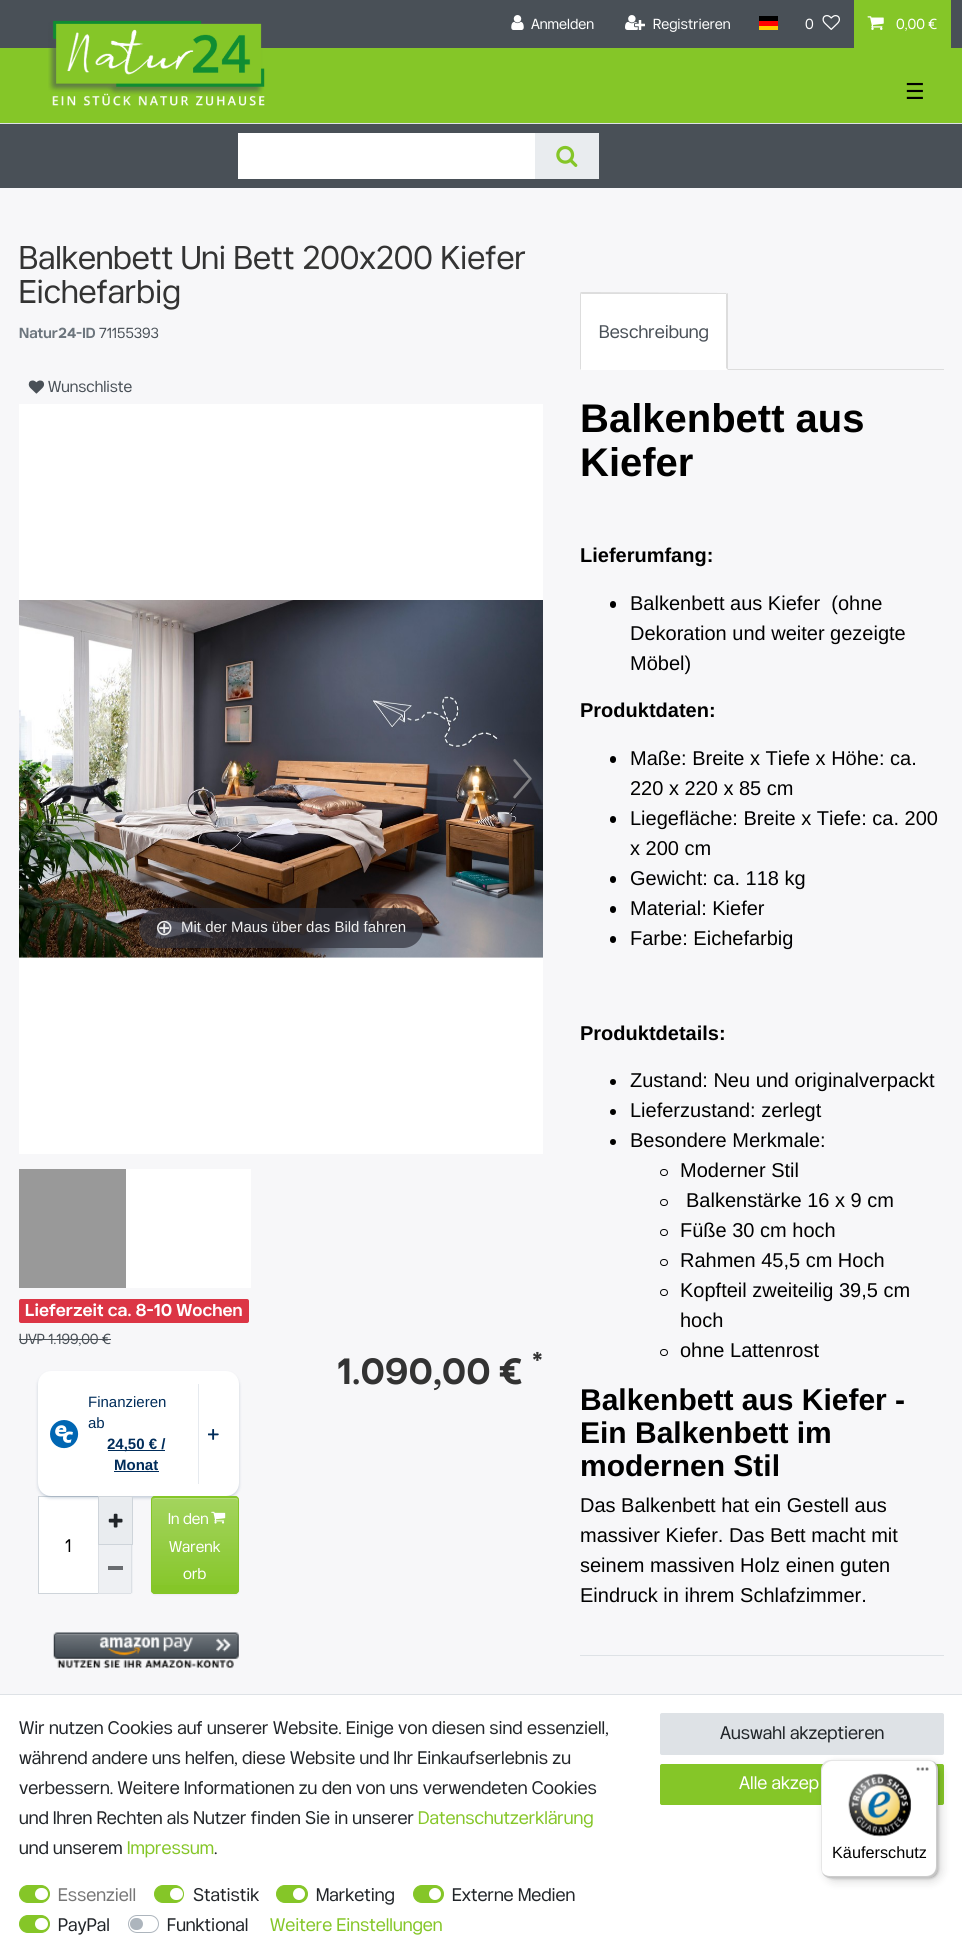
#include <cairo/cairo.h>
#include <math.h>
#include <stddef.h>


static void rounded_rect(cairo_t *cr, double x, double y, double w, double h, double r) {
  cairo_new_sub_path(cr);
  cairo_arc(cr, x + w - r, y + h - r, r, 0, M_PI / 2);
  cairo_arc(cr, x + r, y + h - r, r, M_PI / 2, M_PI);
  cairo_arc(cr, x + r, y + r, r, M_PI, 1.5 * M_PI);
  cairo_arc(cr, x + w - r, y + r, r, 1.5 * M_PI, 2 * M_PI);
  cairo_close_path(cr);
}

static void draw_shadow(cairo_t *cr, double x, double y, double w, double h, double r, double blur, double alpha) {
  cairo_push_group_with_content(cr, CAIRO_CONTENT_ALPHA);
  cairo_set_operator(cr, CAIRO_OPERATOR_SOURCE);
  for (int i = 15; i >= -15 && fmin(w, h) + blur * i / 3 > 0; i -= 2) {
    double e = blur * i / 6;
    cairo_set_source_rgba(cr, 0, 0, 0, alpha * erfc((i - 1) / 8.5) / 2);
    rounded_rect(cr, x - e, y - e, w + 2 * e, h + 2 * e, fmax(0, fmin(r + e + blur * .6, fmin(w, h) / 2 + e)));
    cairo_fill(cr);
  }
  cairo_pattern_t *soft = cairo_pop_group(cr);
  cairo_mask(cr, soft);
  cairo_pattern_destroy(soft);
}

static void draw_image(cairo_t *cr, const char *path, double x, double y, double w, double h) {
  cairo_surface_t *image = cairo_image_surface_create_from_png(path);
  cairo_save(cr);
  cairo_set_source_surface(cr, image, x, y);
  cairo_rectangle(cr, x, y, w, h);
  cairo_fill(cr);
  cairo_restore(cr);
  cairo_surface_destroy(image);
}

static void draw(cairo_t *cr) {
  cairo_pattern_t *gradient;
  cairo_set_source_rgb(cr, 247 / 255.0, 247 / 255.0, 249 / 255.0);
  cairo_paint(cr);
  cairo_set_source_rgb(cr, 73 / 255.0, 80 / 255.0, 87 / 255.0);
  cairo_rectangle(cr, 0, 0, 962, 188);
  cairo_fill(cr);
  draw_image(cr, "images/1.png", 511, 15, 13, 15);
  draw_image(cr, "images/2.png", 625, 15, 20, 15);
  cairo_set_source_rgb(cr, 1, 204 / 255.0, 0);
  cairo_rectangle(cr, 759, 26, 19, 4);
  cairo_fill(cr);
  cairo_set_source_rgb(cr, 0, 0, 0);
  cairo_rectangle(cr, 759, 16, 19, 5);
  cairo_fill(cr);
  cairo_set_source_rgb(cr, 1, 0, 0);
  cairo_rectangle(cr, 759, 21, 19, 5);
  cairo_fill(cr);
  draw_image(cr, "images/3.png", 822, 15, 18, 15);
  cairo_set_source_rgb(cr, 133 / 255.0, 198 / 255.0, 40 / 255.0);
  cairo_rectangle(cr, 854, 0, 97, 48);
  cairo_fill(cr);
  draw_image(cr, "images/4.png", 867, 16, 17, 14);
  cairo_rectangle(cr, 0, 48, 962, 75);
  cairo_fill(cr);
  cairo_set_source_rgb(cr, 222 / 255.0, 226 / 255.0, 230 / 255.0);
  cairo_rectangle(cr, 0, 123, 962, 1);
  cairo_fill(cr);
  draw_image(cr, "images/5.png", 48, 20, 217, 86);
  cairo_set_source_rgb(cr, 1, 1, 1);
  cairo_rectangle(cr, 238, 133, 297, 46);
  cairo_fill(cr);
  cairo_set_source_rgb(cr, 233 / 255.0, 236 / 255.0, 239 / 255.0);
  cairo_rectangle(cr, 535, 133, 64, 46);
  cairo_fill(cr);
  draw_image(cr, "images/6.png", 556, 145, 22, 22);
  draw_image(cr, "images/7.png", 28, 380, 17, 14);
  cairo_set_source_rgb(cr, 1, 1, 1);
  cairo_rectangle(cr, 19, 404, 524, 750);
  cairo_fill(cr);
  draw_image(cr, "images/8.png", 19, 600, 524, 358);
  draw_image(cr, "images/9.png", 29, 758, 19, 40);
  draw_image(cr, "images/10.png", 513, 759, 19, 40);
  cairo_set_source_rgba(cr, 49 / 255.0, 51 / 255.0, 61 / 255.0, 0.7);
  rounded_rect(cr, 139, 908, 284, 40, 20);
  cairo_fill(cr);
  cairo_set_source_rgb(cr, 153 / 255.0, 153 / 255.0, 153 / 255.0);
  cairo_rectangle(cr, 19, 1169, 107, 119);
  cairo_fill(cr);
  cairo_set_source_rgb(cr, 1, 1, 1);
  cairo_rectangle(cr, 126, 1169, 125, 119);
  cairo_fill(cr);
  cairo_set_source_rgb(cr, 220 / 255.0, 53 / 255.0, 69 / 255.0);
  rounded_rect(cr, 19, 1299, 230, 24, 2);
  cairo_fill(cr);
  cairo_set_source_rgb(cr, 73 / 255.0, 80 / 255.0, 87 / 255.0);
  cairo_rectangle(cr, 19, 1339, 92, 1);
  cairo_fill(cr);
  cairo_set_source_rgb(cr, 1, 1, 1);
  cairo_rectangle(cr, 39, 1497, 59, 96);
  cairo_fill(cr);
  cairo_set_source_rgb(cr, 206 / 255.0, 212 / 255.0, 218 / 255.0);
  cairo_rectangle(cr, 38, 1496, 60, 1);
  cairo_fill(cr);
  cairo_rectangle(cr, 38, 1593, 60, 1);
  cairo_fill(cr);
  cairo_rectangle(cr, 38, 1496, 1, 98);
  cairo_fill(cr);
  cairo_set_source_rgb(cr, 0, 44 / 255.0, 90 / 255.0);
  draw_shadow(cr, 38, 1373, 201, 125, 13, 1.5, 0.2);
  cairo_set_source_rgb(cr, 1, 1, 1);
  rounded_rect(cr, 38, 1371, 201, 125, 13);
  cairo_fill(cr);
  draw_image(cr, "images/11.png", 50, 1420, 29, 29);
  cairo_set_source_rgb(cr, 0, 44 / 255.0, 90 / 255.0);
  cairo_rectangle(cr, 108, 1450, 57, 1);
  cairo_fill(cr);
  cairo_rectangle(cr, 114, 1471, 45, 1);
  cairo_fill(cr);
  cairo_set_source_rgb(cr, 230 / 255.0, 234 / 255.0, 239 / 255.0);
  cairo_rectangle(cr, 198, 1384, 1, 100);
  cairo_fill(cr);
  draw_image(cr, "images/12.png", 208, 1429, 11, 11);
  cairo_set_source_rgb(cr, 233 / 255.0, 236 / 255.0, 239 / 255.0);
  cairo_new_path(cr);
  cairo_move_to(cr, 98.5, 1496.5);
  cairo_line_to(cr, 131, 1496.5);
  cairo_curve_to(cr, 132, 1496.5, 132.5, 1497, 132.5, 1498);
  cairo_line_to(cr, 132.5, 1544.5);
  cairo_line_to(cr, 98.5, 1544.5);
  cairo_close_path(cr);
  cairo_fill_preserve(cr);
  cairo_set_source_rgb(cr, 206 / 255.0, 212 / 255.0, 218 / 255.0);
  cairo_set_line_width(cr, 1);
  cairo_stroke(cr);
  draw_image(cr, "images/13.png", 108, 1513, 15, 15);
  cairo_set_source_rgb(cr, 238 / 255.0, 240 / 255.0, 243 / 255.0);
  cairo_new_path(cr);
  cairo_move_to(cr, 98, 1545);
  cairo_line_to(cr, 133, 1545);
  cairo_line_to(cr, 133, 1592);
  cairo_curve_to(cr, 133, 1593, 132, 1594, 131, 1594);
  cairo_line_to(cr, 98, 1594);
  cairo_close_path(cr);
  cairo_fill(cr);
  cairo_set_source_rgb(cr, 220 / 255.0, 224 / 255.0, 229 / 255.0);
  cairo_rectangle(cr, 131, 1545, 1, 48);
  cairo_fill(cr);
  cairo_rectangle(cr, 98, 1593, 33, 1);
  cairo_fill(cr);
  cairo_rectangle(cr, 98, 1545, 1, 49);
  cairo_fill(cr);
  cairo_set_source_rgb(cr, 105 / 255.0, 108 / 255.0, 112 / 255.0);
  cairo_rectangle(cr, 108, 1566, 15, 4);
  cairo_fill(cr);
  cairo_set_source_rgb(cr, 0, 0, 0);
  draw_shadow(cr, 151, 1498, 88, 97, 4, 1, 0.05);
  cairo_set_source_rgb(cr, 133 / 255.0, 198 / 255.0, 40 / 255.0);
  rounded_rect(cr, 151, 1496, 88, 98, 4);
  cairo_fill(cr);
  gradient = cairo_pattern_create_linear(195, 1498, 195, 1593);
  cairo_pattern_add_color_stop_rgba(gradient, 0, 1, 1, 1, 0.25);
  cairo_pattern_add_color_stop_rgba(gradient, 1, 1, 1, 1, 0);
  cairo_set_source(cr, gradient);
  cairo_pattern_destroy(gradient);
  cairo_rectangle(cr, 151, 1498, 88, 87);
  cairo_fill(cr);
  cairo_set_source_rgb(cr, 182 / 255.0, 221 / 255.0, 125 / 255.0);
  cairo_new_path(cr);
  cairo_move_to(cr, 155, 1499);
  cairo_line_to(cr, 235, 1499);
  cairo_curve_to(cr, 236, 1499, 238, 1500, 238, 1501);
  cairo_curve_to(cr, 238, 1500, 238, 1499, 236, 1498);
  cairo_line_to(cr, 155, 1498);
  cairo_line_to(cr, 153, 1500);
  cairo_close_path(cr);
  cairo_fill(cr);
  rounded_rect(cr, 151.5, 1496.5, 87, 97, 3.5);
  cairo_set_source_rgb(cr, 133 / 255.0, 198 / 255.0, 40 / 255.0);
  cairo_stroke(cr);
  draw_image(cr, "images/14.png", 211, 1511, 15, 13);
  draw_image(cr, "images/15.png", 53, 1632, 186, 37);
  cairo_set_source_rgb(cr, 221 / 255.0, 221 / 255.0, 221 / 255.0);
  cairo_rectangle(cr, 728, 369, 216, 1);
  cairo_fill(cr);
  cairo_set_source_rgb(cr, 1, 1, 1);
  cairo_new_path(cr);
  cairo_move_to(cr, 582, 293);
  cairo_line_to(cr, 726, 293);
  cairo_curve_to(cr, 727, 293, 728, 294, 728, 295);
  cairo_line_to(cr, 728, 370);
  cairo_line_to(cr, 580, 370);
  cairo_line_to(cr, 580, 295);
  cairo_curve_to(cr, 580, 294, 581, 293, 582, 293);
  cairo_close_path(cr);
  cairo_fill(cr);
  cairo_set_source_rgb(cr, 221 / 255.0, 221 / 255.0, 221 / 255.0);
  cairo_new_path(cr);
  cairo_move_to(cr, 580, 293);
  cairo_line_to(cr, 581, 292);
  cairo_line_to(cr, 727, 293);
  cairo_line_to(cr, 726, 294);
  cairo_line_to(cr, 582, 294);
  cairo_close_path(cr);
  cairo_fill(cr);
  cairo_new_path(cr);
  cairo_move_to(cr, 728, 293);
  cairo_line_to(cr, 728, 370);
  cairo_line_to(cr, 726, 368);
  cairo_line_to(cr, 726, 294);
  cairo_close_path(cr);
  cairo_fill(cr);
  cairo_new_path(cr);
  cairo_move_to(cr, 580, 370);
  cairo_line_to(cr, 581, 369);
  cairo_line_to(cr, 581, 294);
  cairo_line_to(cr, 582, 294);
  cairo_line_to(cr, 580, 293);
  cairo_line_to(cr, 580, 294);
  cairo_close_path(cr);
  cairo_fill(cr);
  cairo_set_source_rgb(cr, 0, 0, 0);
  rounded_rect(cr, 610, 601, 6, 7, 3);
  cairo_fill(cr);
  rounded_rect(cr, 610, 756, 6, 7, 3);
  cairo_fill(cr);
  rounded_rect(cr, 610, 816, 6, 7, 3);
  cairo_fill(cr);
  rounded_rect(cr, 610, 876, 6, 7, 3);
  cairo_fill(cr);
  rounded_rect(cr, 610, 906, 6, 7, 3);
  cairo_fill(cr);
  rounded_rect(cr, 610, 936, 6, 7, 3);
  cairo_fill(cr);
  cairo_arc(cr, 613, 1082, 3, 0, 2 * M_PI);
  cairo_fill(cr);
  cairo_arc(cr, 613, 1112, 3, 0, 2 * M_PI);
  cairo_fill(cr);
  cairo_arc(cr, 613, 1142, 3, 0, 2 * M_PI);
  cairo_fill(cr);
  rounded_rect(cr, 660.5, 1169.5, 7, 6, 3);
  cairo_stroke(cr);
  rounded_rect(cr, 660.5, 1199.5, 7, 6, 3);
  cairo_stroke(cr);
  rounded_rect(cr, 660.5, 1229.5, 7, 6, 3);
  cairo_stroke(cr);
  rounded_rect(cr, 660.5, 1259.5, 7, 6, 3);
  cairo_stroke(cr);
  rounded_rect(cr, 660.5, 1289.5, 7, 6, 3);
  cairo_stroke(cr);
  rounded_rect(cr, 660.5, 1349.5, 7, 6, 3);
  cairo_stroke(cr);
  cairo_set_source_rgb(cr, 222 / 255.0, 226 / 255.0, 230 / 255.0);
  cairo_rectangle(cr, 580, 1655, 364, 1);
  cairo_fill(cr);
  cairo_set_source_rgb(cr, 1, 1, 1);
  cairo_rectangle(cr, 0, 1695, 962, 262);
  cairo_fill(cr);
  cairo_set_source_rgb(cr, 222 / 255.0, 226 / 255.0, 230 / 255.0);
  cairo_rectangle(cr, 0, 1694, 962, 1);
  cairo_fill(cr);
  cairo_set_source_rgb(cr, 133 / 255.0, 198 / 255.0, 40 / 255.0);
  rounded_rect(cr, 19.5, 1885.5, 30, 17, 8.5);
  cairo_fill_preserve(cr);
  cairo_stroke(cr);
  cairo_set_source_rgb(cr, 1, 1, 1);
  rounded_rect(cr, 35, 1888, 13, 12, 6);
  cairo_fill(cr);
  cairo_set_source_rgb(cr, 133 / 255.0, 198 / 255.0, 40 / 255.0);
  rounded_rect(cr, 154.5, 1885.5, 29, 17, 8.5);
  cairo_fill_preserve(cr);
  cairo_stroke(cr);
  cairo_set_source_rgb(cr, 1, 1, 1);
  rounded_rect(cr, 170, 1888, 13, 12, 6);
  cairo_fill(cr);
  cairo_set_source_rgb(cr, 133 / 255.0, 198 / 255.0, 40 / 255.0);
  rounded_rect(cr, 276.5, 1885.5, 31, 17, 8.5);
  cairo_fill_preserve(cr);
  cairo_stroke(cr);
  cairo_set_source_rgb(cr, 1, 1, 1);
  cairo_arc(cr, 299, 1894, 6, 0, 2 * M_PI);
  cairo_fill(cr);
  cairo_set_source_rgb(cr, 133 / 255.0, 198 / 255.0, 40 / 255.0);
  rounded_rect(cr, 413.5, 1885.5, 30, 17, 8.5);
  cairo_fill_preserve(cr);
  cairo_stroke(cr);
  cairo_set_source_rgb(cr, 1, 1, 1);
  cairo_arc(cr, 435, 1894, 6, 0, 2 * M_PI);
  cairo_fill(cr);
  cairo_set_source_rgb(cr, 133 / 255.0, 198 / 255.0, 40 / 255.0);
  rounded_rect(cr, 19.5, 1915.5, 30, 17, 8.5);
  cairo_fill_preserve(cr);
  cairo_stroke(cr);
  cairo_set_source_rgb(cr, 1, 1, 1);
  rounded_rect(cr, 35, 1918, 13, 12, 6);
  cairo_fill(cr);
  rounded_rect(cr, 128.5, 1915.5, 30, 17, 8.5);
  cairo_set_source_rgb(cr, 173 / 255.0, 181 / 255.0, 189 / 255.0);
  cairo_stroke(cr);
  rounded_rect(cr, 130, 1918, 13, 12, 6);
  cairo_fill(cr);
  cairo_set_source_rgb(cr, 222 / 255.0, 226 / 255.0, 230 / 255.0);
  rounded_rect(cr, 660.5, 1713.5, 283, 41, 1.5);
  cairo_fill_preserve(cr);
  cairo_stroke(cr);
  cairo_set_source_rgb(cr, 133 / 255.0, 198 / 255.0, 40 / 255.0);
  rounded_rect(cr, 660.5, 1764.5, 283, 40, 1.5);
  cairo_fill_preserve(cr);
  cairo_stroke(cr);
  cairo_set_source_rgb(cr, 0, 0, 0);
  draw_shadow(cr, 825, 1764, 116, 117, 10, 5, 0.15);
  draw_shadow(cr, 823, 1761, 116, 118, 10, 1, 0.15);
  cairo_set_source_rgb(cr, 1, 1, 1);
  rounded_rect(cr, 821, 1760, 117, 118, 10);
  cairo_fill(cr);
  cairo_set_source_rgba(cr, 0, 0, 0, 0.1);
  cairo_new_path(cr);
  cairo_move_to(cr, 832, 1761);
  cairo_line_to(cr, 929, 1761);
  cairo_curve_to(cr, 932, 1761, 935, 1763, 937, 1765);
  cairo_curve_to(cr, 935, 1762, 932, 1760, 928, 1760);
  cairo_line_to(cr, 831, 1760);
  cairo_curve_to(cr, 825, 1760, 821, 1764, 821, 1770);
  cairo_line_to(cr, 821, 1868);
  cairo_curve_to(cr, 821, 1872, 823, 1875, 826, 1877);
  cairo_curve_to(cr, 824, 1875, 822, 1872, 822, 1869);
  cairo_line_to(cr, 822, 1771);
  cairo_curve_to(cr, 822, 1766, 827, 1761, 832, 1761);
  cairo_close_path(cr);
  cairo_fill(cr);
  cairo_set_source_rgba(cr, 0, 0, 0, 0.2);
  cairo_new_path(cr);
  cairo_move_to(cr, 822, 1872);
  cairo_curve_to(cr, 824, 1876, 827, 1878, 831, 1878);
  cairo_line_to(cr, 928, 1878);
  cairo_curve_to(cr, 934, 1878, 938, 1874, 938, 1868);
  cairo_line_to(cr, 938, 1770);
  cairo_curve_to(cr, 938, 1766, 936, 1763, 932, 1761);
  cairo_curve_to(cr, 935, 1763, 936, 1766, 936, 1769);
  cairo_line_to(cr, 936, 1866);
  cairo_curve_to(cr, 936, 1872, 932, 1876, 926, 1876);
  cairo_line_to(cr, 830, 1876);
  cairo_curve_to(cr, 827, 1876, 824, 1875, 822, 1872);
  cairo_close_path(cr);
  cairo_fill(cr);
  cairo_set_source_rgba(cr, 50 / 255.0, 50 / 255.0, 50 / 255.0, 0.2);
  cairo_new_path(cr);
  cairo_move_to(cr, 822, 1873);
  cairo_curve_to(cr, 824, 1876, 827, 1878, 831, 1878);
  cairo_line_to(cr, 928, 1878);
  cairo_curve_to(cr, 934, 1878, 938, 1874, 938, 1868);
  cairo_line_to(cr, 938, 1770);
  cairo_curve_to(cr, 938, 1766, 936, 1763, 933, 1761);
  cairo_curve_to(cr, 935, 1763, 937, 1766, 937, 1769);
  cairo_line_to(cr, 937, 1867);
  cairo_curve_to(cr, 937, 1872, 932, 1877, 927, 1877);
  cairo_line_to(cr, 830, 1877);
  cairo_curve_to(cr, 827, 1877, 824, 1875, 822, 1873);
  cairo_close_path(cr);
  cairo_fill(cr);
  cairo_set_source_rgba(cr, 1, 1, 1, 0.3);
  cairo_new_path(cr);
  cairo_move_to(cr, 821, 1867);
  cairo_line_to(cr, 821, 1868);
  cairo_curve_to(cr, 821, 1874, 825, 1878, 831, 1878);
  cairo_line_to(cr, 928, 1878);
  cairo_curve_to(cr, 934, 1878, 938, 1874, 938, 1868);
  cairo_line_to(cr, 938, 1770);
  cairo_curve_to(cr, 938, 1766, 936, 1763, 933, 1761);
  cairo_curve_to(cr, 935, 1763, 937, 1766, 937, 1769);
  cairo_line_to(cr, 937, 1867);
  cairo_curve_to(cr, 937, 1872, 932, 1877, 927, 1877);
  cairo_line_to(cr, 831, 1877);
  cairo_curve_to(cr, 825, 1877, 821, 1872, 821, 1867);
  cairo_close_path(cr);
  cairo_fill(cr);
  draw_image(cr, "images/16.png", 916, 1767, 13, 4);
  draw_image(cr, "images/17.png", 848, 1773, 64, 64);
  cairo_select_font_face(cr, "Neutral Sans", CAIRO_FONT_SLANT_NORMAL, CAIRO_FONT_WEIGHT_NORMAL);
  cairo_set_font_size(cr, 14);
  cairo_set_source_rgb(cr, 1, 1, 1);
  cairo_move_to(cr, 531, 29);
  cairo_show_text(cr, "Anmelden");
  cairo_move_to(cr, 653, 29);
  cairo_show_text(cr, "Registrieren");
  cairo_move_to(cr, 805, 29);
  cairo_show_text(cr, "0");
  cairo_move_to(cr, 896, 29);
  cairo_show_text(cr, "0,00 €");
  cairo_select_font_face(cr, "DejaVu Sans", CAIRO_FONT_SLANT_NORMAL, CAIRO_FONT_WEIGHT_NORMAL);
  cairo_set_font_size(cr, 22);
  cairo_set_source_rgb(cr, 0, 0, 0);
  cairo_move_to(cr, 905, 99);
  cairo_show_text(cr, "☰");
  cairo_select_font_face(cr, "Neutral Sans", CAIRO_FONT_SLANT_NORMAL, CAIRO_FONT_WEIGHT_NORMAL);
  cairo_set_font_size(cr, 31.5);
  cairo_set_source_rgb(cr, 51 / 255.0, 51 / 255.0, 51 / 255.0);
  cairo_move_to(cr, 19, 269);
  cairo_show_text(cr, "Balkenbett Uni Bett 200x200 Kiefer");
  cairo_move_to(cr, 19, 303);
  cairo_show_text(cr, "Eichefarbig");
  cairo_select_font_face(cr, "Neutral Sans", CAIRO_FONT_SLANT_NORMAL, CAIRO_FONT_WEIGHT_BOLD);
  cairo_set_font_size(cr, 14);
  cairo_set_source_rgb(cr, 108 / 255.0, 117 / 255.0, 125 / 255.0);
  cairo_move_to(cr, 19, 338);
  cairo_show_text(cr, "Natur24-ID");
  cairo_select_font_face(cr, "Neutral Sans", CAIRO_FONT_SLANT_NORMAL, CAIRO_FONT_WEIGHT_NORMAL);
  cairo_set_source_rgb(cr, 73 / 255.0, 80 / 255.0, 87 / 255.0);
  cairo_move_to(cr, 99, 338);
  cairo_show_text(cr, "71155393");
  cairo_set_font_size(cr, 15.25);
  cairo_move_to(cr, 48, 392);
  cairo_show_text(cr, "Wunschliste");
  cairo_select_font_face(cr, "DejaVu Sans", CAIRO_FONT_SLANT_NORMAL, CAIRO_FONT_WEIGHT_NORMAL);
  cairo_set_font_size(cr, 22);
  cairo_set_source_rgb(cr, 238 / 255.0, 238 / 255.0, 238 / 255.0);
  cairo_move_to(cr, 155, 935);
  cairo_show_text(cr, "⊕");
  cairo_select_font_face(cr, "Liberation Sans", CAIRO_FONT_SLANT_NORMAL, CAIRO_FONT_WEIGHT_NORMAL);
  cairo_set_font_size(cr, 15);
  cairo_move_to(cr, 181, 932);
  cairo_show_text(cr, "Mit der Maus über das Bild fahren");
  cairo_select_font_face(cr, "Neutral Sans", CAIRO_FONT_SLANT_NORMAL, CAIRO_FONT_WEIGHT_BOLD);
  cairo_set_font_size(cr, 16.4);
  cairo_set_source_rgb(cr, 1, 1, 1);
  cairo_move_to(cr, 25, 1316);
  cairo_show_text(cr, "Lieferzeit ca. 8-10 Wochen");
  cairo_select_font_face(cr, "Neutral Sans", CAIRO_FONT_SLANT_NORMAL, CAIRO_FONT_WEIGHT_NORMAL);
  cairo_set_font_size(cr, 14);
  cairo_set_source_rgb(cr, 73 / 255.0, 80 / 255.0, 87 / 255.0);
  cairo_move_to(cr, 19, 1344);
  cairo_show_text(cr, "UVP 1.199,00 €");
  cairo_select_font_face(cr, "Neutral Sans", CAIRO_FONT_SLANT_NORMAL, CAIRO_FONT_WEIGHT_BOLD);
  cairo_set_font_size(cr, 26);
  cairo_set_source_rgb(cr, 51 / 255.0, 51 / 255.0, 51 / 255.0);
  cairo_move_to(cr, 532, 1371);
  cairo_show_text(cr, "*");
  cairo_set_font_size(cr, 35);
  cairo_move_to(cr, 337, 1384);
  cairo_show_text(cr, "1.090,00 €");
  cairo_select_font_face(cr, "Liberation Sans", CAIRO_FONT_SLANT_NORMAL, CAIRO_FONT_WEIGHT_NORMAL);
  cairo_set_font_size(cr, 15);
  cairo_set_source_rgb(cr, 0, 44 / 255.0, 90 / 255.0);
  cairo_move_to(cr, 88, 1407);
  cairo_show_text(cr, "Finanzieren");
  cairo_move_to(cr, 88, 1428);
  cairo_show_text(cr, "ab");
  cairo_select_font_face(cr, "Liberation Sans", CAIRO_FONT_SLANT_NORMAL, CAIRO_FONT_WEIGHT_BOLD);
  cairo_move_to(cr, 107, 1449);
  cairo_show_text(cr, "24,50 € /");
  cairo_move_to(cr, 114, 1470);
  cairo_show_text(cr, "Monat");
  cairo_select_font_face(cr, "Neutral Sans", CAIRO_FONT_SLANT_NORMAL, CAIRO_FONT_WEIGHT_NORMAL);
  cairo_set_font_size(cr, 17.5);
  cairo_set_source_rgb(cr, 0, 0, 0);
  cairo_move_to(cr, 65, 1552);
  cairo_show_text(cr, "1");
  cairo_set_font_size(cr, 15);
  cairo_set_source_rgb(cr, 1, 1, 1);
  cairo_move_to(cr, 168, 1524);
  cairo_show_text(cr, "In den");
  cairo_move_to(cr, 169, 1552);
  cairo_show_text(cr, "Warenk");
  cairo_move_to(cr, 183, 1579);
  cairo_show_text(cr, "orb");
  cairo_set_font_size(cr, 17.5);
  cairo_set_source_rgb(cr, 73 / 255.0, 80 / 255.0, 87 / 255.0);
  cairo_move_to(cr, 599, 338);
  cairo_show_text(cr, "Beschreibung");
  cairo_select_font_face(cr, "Liberation Sans", CAIRO_FONT_SLANT_NORMAL, CAIRO_FONT_WEIGHT_BOLD);
  cairo_set_font_size(cr, 40);
  cairo_set_source_rgb(cr, 0, 0, 0);
  cairo_move_to(cr, 580, 432);
  cairo_show_text(cr, "Balkenbett aus");
  cairo_move_to(cr, 580, 476);
  cairo_show_text(cr, "Kiefer");
  cairo_set_font_size(cr, 20);
  cairo_move_to(cr, 580, 562);
  cairo_show_text(cr, "Lieferumfang:");
  cairo_select_font_face(cr, "Liberation Sans", CAIRO_FONT_SLANT_NORMAL, CAIRO_FONT_WEIGHT_NORMAL);
  cairo_move_to(cr, 630, 610);
  cairo_show_text(cr, "Balkenbett aus Kiefer  (ohne");
  cairo_move_to(cr, 630, 640);
  cairo_show_text(cr, "Dekoration und weiter gezeigte");
  cairo_move_to(cr, 630, 670);
  cairo_show_text(cr, "Möbel)");
  cairo_select_font_face(cr, "Liberation Sans", CAIRO_FONT_SLANT_NORMAL, CAIRO_FONT_WEIGHT_BOLD);
  cairo_move_to(cr, 580, 717);
  cairo_show_text(cr, "Produktdaten:");
  cairo_select_font_face(cr, "Liberation Sans", CAIRO_FONT_SLANT_NORMAL, CAIRO_FONT_WEIGHT_NORMAL);
  cairo_move_to(cr, 630, 765);
  cairo_show_text(cr, "Maße: Breite x Tiefe x Höhe: ca.");
  cairo_move_to(cr, 630, 795);
  cairo_show_text(cr, "220 x 220 x 85 cm");
  cairo_move_to(cr, 630, 825);
  cairo_show_text(cr, "Liegefläche: Breite x Tiefe: ca. 200");
  cairo_move_to(cr, 630, 855);
  cairo_show_text(cr, "x 200 cm");
  cairo_move_to(cr, 630, 885);
  cairo_show_text(cr, "Gewicht: ca. 118 kg");
  cairo_move_to(cr, 630, 915);
  cairo_show_text(cr, "Material: Kiefer");
  cairo_move_to(cr, 630, 945);
  cairo_show_text(cr, "Farbe: Eichefarbig");
  cairo_select_font_face(cr, "Liberation Sans", CAIRO_FONT_SLANT_NORMAL, CAIRO_FONT_WEIGHT_BOLD);
  cairo_move_to(cr, 580, 1040);
  cairo_show_text(cr, "Produktdetails:");
  cairo_select_font_face(cr, "Liberation Sans", CAIRO_FONT_SLANT_NORMAL, CAIRO_FONT_WEIGHT_NORMAL);
  cairo_move_to(cr, 630, 1087);
  cairo_show_text(cr, "Zustand: Neu und originalverpackt");
  cairo_move_to(cr, 630, 1117);
  cairo_show_text(cr, "Lieferzustand: zerlegt");
  cairo_move_to(cr, 630, 1147);
  cairo_show_text(cr, "Besondere Merkmale:");
  cairo_move_to(cr, 680, 1177);
  cairo_show_text(cr, "Moderner Stil");
  cairo_move_to(cr, 686, 1207);
  cairo_show_text(cr, "Balkenstärke 16 x 9 cm");
  cairo_move_to(cr, 680, 1237);
  cairo_show_text(cr, "Füße 30 cm hoch");
  cairo_move_to(cr, 680, 1267);
  cairo_show_text(cr, "Rahmen 45,5 cm Hoch");
  cairo_move_to(cr, 680, 1297);
  cairo_show_text(cr, "Kopfteil zweiteilig 39,5 cm");
  cairo_move_to(cr, 680, 1327);
  cairo_show_text(cr, "hoch");
  cairo_move_to(cr, 680, 1357);
  cairo_show_text(cr, "ohne Lattenrost");
  cairo_select_font_face(cr, "Liberation Sans", CAIRO_FONT_SLANT_NORMAL, CAIRO_FONT_WEIGHT_BOLD);
  cairo_set_font_size(cr, 30);
  cairo_move_to(cr, 580, 1410);
  cairo_show_text(cr, "Balkenbett aus Kiefer -");
  cairo_move_to(cr, 580, 1443);
  cairo_show_text(cr, "Ein Balkenbett im");
  cairo_move_to(cr, 580, 1476);
  cairo_show_text(cr, "modernen Stil");
  cairo_select_font_face(cr, "Liberation Sans", CAIRO_FONT_SLANT_NORMAL, CAIRO_FONT_WEIGHT_NORMAL);
  cairo_set_font_size(cr, 20);
  cairo_move_to(cr, 580, 1512);
  cairo_show_text(cr, "Das Balkenbett hat ein Gestell aus");
  cairo_move_to(cr, 580, 1542);
  cairo_show_text(cr, "massiver Kiefer. Das Bett macht mit");
  cairo_move_to(cr, 580, 1572);
  cairo_show_text(cr, "seinem massiven Holz einen guten");
  cairo_move_to(cr, 580, 1602);
  cairo_show_text(cr, "Eindruck in ihrem Schlafzimmer.");
  cairo_select_font_face(cr, "Neutral Sans", CAIRO_FONT_SLANT_NORMAL, CAIRO_FONT_WEIGHT_NORMAL);
  cairo_set_font_size(cr, 17.5);
  cairo_set_source_rgb(cr, 33 / 255.0, 37 / 255.0, 41 / 255.0);
  cairo_move_to(cr, 19, 1734);
  cairo_show_text(cr, "Wir nutzen Cookies auf unserer Website. Einige von diesen sind essenziell,");
  cairo_move_to(cr, 19, 1764);
  cairo_show_text(cr, "während andere uns helfen, diese Website und Ihr Einkaufserlebnis zu");
  cairo_move_to(cr, 19, 1794);
  cairo_show_text(cr, "verbessern. Weitere Informationen zu den von uns verwendeten Cookies");
  cairo_move_to(cr, 19, 1824);
  cairo_show_text(cr, "und Ihren Rechten als Nutzer finden Sie in unserer");
  cairo_set_source_rgb(cr, 133 / 255.0, 198 / 255.0, 40 / 255.0);
  cairo_move_to(cr, 418, 1824);
  cairo_show_text(cr, "Datenschutzerklärung");
  cairo_set_source_rgb(cr, 33 / 255.0, 37 / 255.0, 41 / 255.0);
  cairo_move_to(cr, 19, 1854);
  cairo_show_text(cr, "und unserem");
  cairo_set_source_rgb(cr, 133 / 255.0, 198 / 255.0, 40 / 255.0);
  cairo_move_to(cr, 127, 1854);
  cairo_show_text(cr, "Impressum");
  cairo_set_source_rgb(cr, 33 / 255.0, 37 / 255.0, 41 / 255.0);
  cairo_move_to(cr, 214, 1854);
  cairo_show_text(cr, ".");
  cairo_set_source_rgb(cr, 118 / 255.0, 118 / 255.0, 118 / 255.0);
  cairo_move_to(cr, 58, 1901);
  cairo_show_text(cr, "Essenziell");
  cairo_set_source_rgb(cr, 33 / 255.0, 37 / 255.0, 41 / 255.0);
  cairo_move_to(cr, 193, 1901);
  cairo_show_text(cr, "Statistik");
  cairo_move_to(cr, 316, 1901);
  cairo_show_text(cr, "Marketing");
  cairo_move_to(cr, 452, 1901);
  cairo_show_text(cr, "Externe Medien");
  cairo_move_to(cr, 58, 1931);
  cairo_show_text(cr, "PayPal");
  cairo_move_to(cr, 167, 1931);
  cairo_show_text(cr, "Funktional");
  cairo_set_source_rgb(cr, 133 / 255.0, 198 / 255.0, 40 / 255.0);
  cairo_move_to(cr, 270, 1931);
  cairo_show_text(cr, "Weitere Einstellungen");
  cairo_set_source_rgb(cr, 33 / 255.0, 37 / 255.0, 41 / 255.0);
  cairo_move_to(cr, 720, 1739);
  cairo_show_text(cr, "Auswahl akzeptieren");
  cairo_set_source_rgb(cr, 1, 1, 1);
  cairo_move_to(cr, 739, 1789);
  cairo_show_text(cr, "Alle akzep");
  cairo_select_font_face(cr, "Liberation Sans", CAIRO_FONT_SLANT_NORMAL, CAIRO_FONT_WEIGHT_NORMAL);
  cairo_set_font_size(cr, 16.25);
  cairo_set_source_rgb(cr, 0, 0, 0);
  cairo_move_to(cr, 832, 1858);
  cairo_show_text(cr, "Käuferschutz");
}

int main(void) {
  cairo_surface_t *surface = cairo_image_surface_create(CAIRO_FORMAT_RGB24, 962, 1957);
  cairo_t *cr = cairo_create(surface);
  cairo_font_options_t *options = cairo_font_options_create();
  cairo_font_options_set_hint_metrics(options, CAIRO_HINT_METRICS_OFF);
  cairo_font_options_set_hint_style(options, CAIRO_HINT_STYLE_NONE);
  cairo_set_font_options(cr, options);
  cairo_set_miter_limit(cr, 4);
  draw(cr);
  cairo_surface_write_to_png(surface, "out.png");
  cairo_font_options_destroy(options);
  cairo_destroy(cr);
  cairo_surface_destroy(surface);
  return 0;
}
